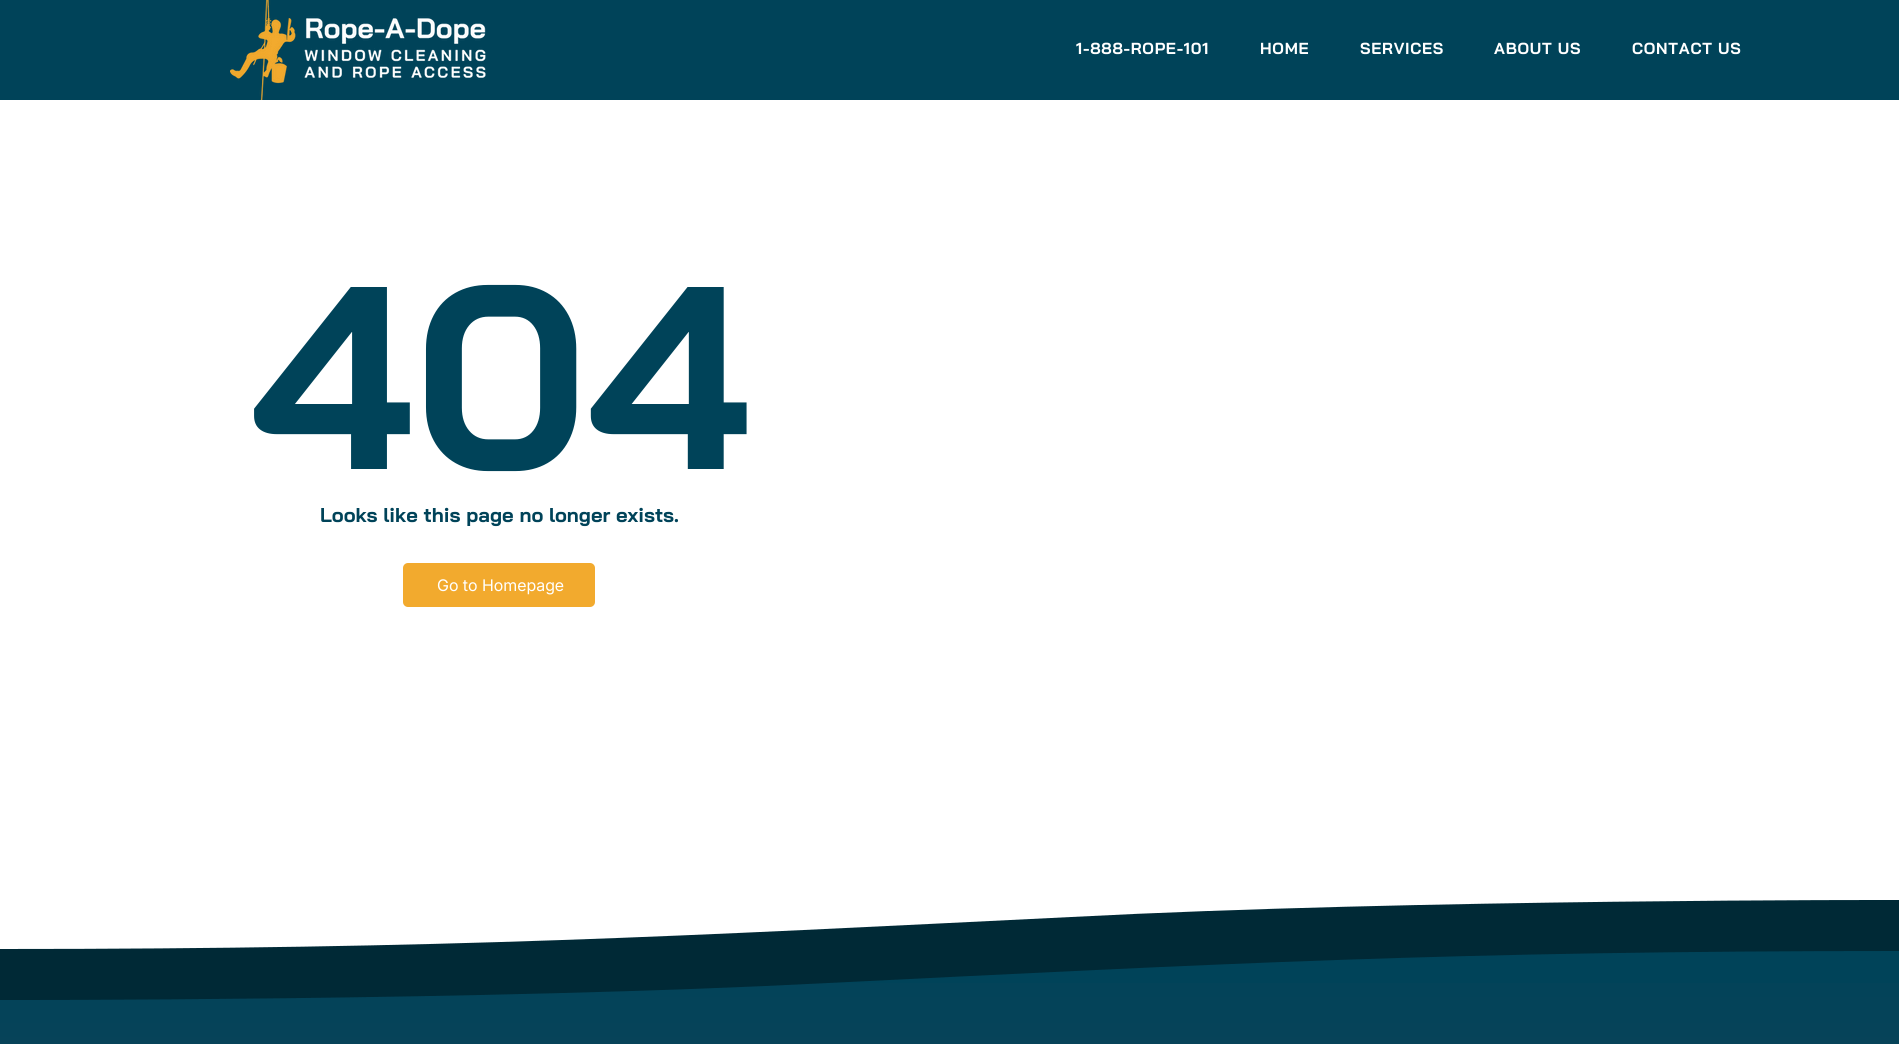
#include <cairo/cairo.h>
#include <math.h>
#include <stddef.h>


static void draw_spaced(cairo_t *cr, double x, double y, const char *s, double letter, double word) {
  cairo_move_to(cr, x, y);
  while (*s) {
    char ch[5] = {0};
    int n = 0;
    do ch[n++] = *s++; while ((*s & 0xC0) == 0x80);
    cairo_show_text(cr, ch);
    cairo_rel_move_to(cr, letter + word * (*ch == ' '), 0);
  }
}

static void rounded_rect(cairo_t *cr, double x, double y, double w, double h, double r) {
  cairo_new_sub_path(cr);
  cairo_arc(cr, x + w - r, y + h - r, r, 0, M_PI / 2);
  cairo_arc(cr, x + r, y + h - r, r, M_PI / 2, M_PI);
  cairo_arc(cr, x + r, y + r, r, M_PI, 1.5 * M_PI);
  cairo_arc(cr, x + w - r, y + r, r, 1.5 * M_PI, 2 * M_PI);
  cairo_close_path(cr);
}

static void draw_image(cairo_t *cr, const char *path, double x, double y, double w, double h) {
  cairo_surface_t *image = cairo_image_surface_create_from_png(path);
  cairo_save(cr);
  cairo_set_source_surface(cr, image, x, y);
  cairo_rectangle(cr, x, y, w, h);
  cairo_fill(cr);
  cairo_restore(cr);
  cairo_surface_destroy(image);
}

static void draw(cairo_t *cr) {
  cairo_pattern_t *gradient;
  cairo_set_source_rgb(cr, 0, 67 / 255.0, 89 / 255.0);
  cairo_paint(cr);
  draw_image(cr, "images/1.png", 230, 0, 256, 100);
  cairo_set_source_rgb(cr, 1, 1, 1);
  cairo_rectangle(cr, 0, 100, 1899, 849);
  cairo_fill(cr);
  cairo_set_source_rgb(cr, 242 / 255.0, 170 / 255.0, 46 / 255.0);
  rounded_rect(cr, 403, 563, 192, 44, 5);
  cairo_fill(cr);
  cairo_set_source_rgb(cr, 0, 41 / 255.0, 54 / 255.0);
  cairo_new_path(cr);
  cairo_move_to(cr, 0, 950);
  cairo_line_to(cr, 0, 949);
  cairo_curve_to(cr, 450, 949, 683, 936, 1071, 917);
  cairo_curve_to(cr, 1414, 899, 1899, 900, 1899, 900);
  cairo_line_to(cr, 1899, 950);
  cairo_close_path(cr);
  cairo_fill(cr);
  gradient = cairo_pattern_create_linear(950, 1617, 950, 950);
  cairo_pattern_add_color_stop_rgba(gradient, 0, 50 / 255.0, 65 / 255.0, 88 / 255.0, 1);
  cairo_pattern_add_color_stop_rgba(gradient, 1, 0, 67 / 255.0, 89 / 255.0, 1);
  cairo_set_source(cr, gradient);
  cairo_pattern_destroy(gradient);
  cairo_rectangle(cr, 0, 983, 1899, 61);
  cairo_fill(cr);
  cairo_set_source_rgb(cr, 0, 41 / 255.0, 54 / 255.0);
  cairo_new_path(cr);
  cairo_move_to(cr, 1899, 950);
  cairo_line_to(cr, 1899, 951);
  cairo_curve_to(cr, 1449, 951, 1216, 964, 828, 983);
  cairo_curve_to(cr, 485, 1001, 0, 1000, 0, 1000);
  cairo_line_to(cr, 0, 950);
  cairo_close_path(cr);
  cairo_fill(cr);
  cairo_select_font_face(cr, "Bai Jamjuree", CAIRO_FONT_SLANT_NORMAL, CAIRO_FONT_WEIGHT_BOLD);
  cairo_set_font_size(cr, 16);
  cairo_set_source_rgb(cr, 1, 1, 1);
  draw_spaced(cr, 1076, 54, "1-888-ROPE-101", 0.75, 0);
  draw_spaced(cr, 1260, 54, "HOME", 0.75, 0);
  draw_spaced(cr, 1360, 54, "SERVICES", 0.75, 0);
  draw_spaced(cr, 1494, 54, "ABOUT US", 0.75, 0);
  draw_spaced(cr, 1632, 54, "CONTACT US", 0.75, 0);
  cairo_set_font_size(cr, 260);
  cairo_set_source_rgb(cr, 0, 67 / 255.0, 89 / 255.0);
  cairo_move_to(cr, 252, 469);
  cairo_show_text(cr, "404");
  cairo_set_font_size(cr, 20);
  cairo_move_to(cr, 320, 522);
  cairo_show_text(cr, "Looks like this page no longer exists.");
  cairo_select_font_face(cr, "Inter", CAIRO_FONT_SLANT_NORMAL, CAIRO_FONT_WEIGHT_NORMAL);
  cairo_set_font_size(cr, 16);
  cairo_set_source_rgb(cr, 1, 1, 1);
  cairo_move_to(cr, 437, 591);
  cairo_show_text(cr, "Go to Homepage");
}

int main(void) {
  cairo_surface_t *surface = cairo_image_surface_create(CAIRO_FORMAT_RGB24, 1899, 1044);
  cairo_t *cr = cairo_create(surface);
  cairo_font_options_t *options = cairo_font_options_create();
  cairo_font_options_set_hint_metrics(options, CAIRO_HINT_METRICS_OFF);
  cairo_font_options_set_hint_style(options, CAIRO_HINT_STYLE_NONE);
  cairo_set_font_options(cr, options);
  cairo_set_miter_limit(cr, 4);
  draw(cr);
  cairo_surface_write_to_png(surface, "out.png");
  cairo_font_options_destroy(options);
  cairo_destroy(cr);
  cairo_surface_destroy(surface);
  return 0;
}
